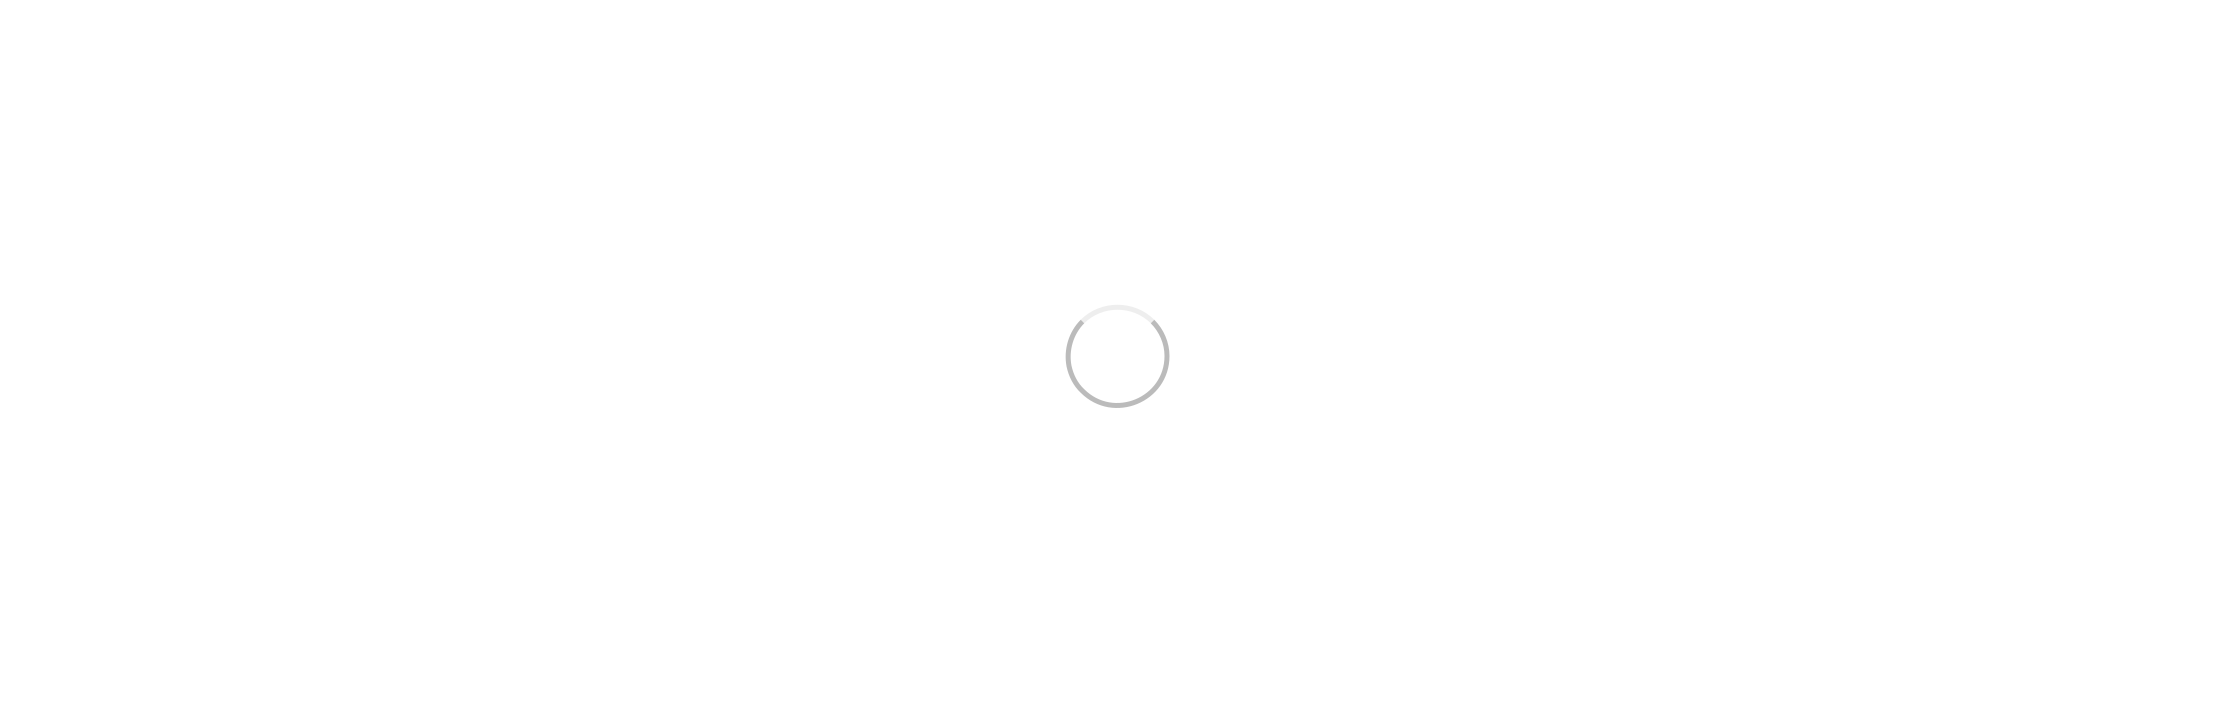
#include <cairo/cairo.h>
#include <math.h>
#include <stddef.h>


static void draw(cairo_t *cr) {
  cairo_set_source_rgb(cr, 1, 1, 1);
  cairo_paint(cr);
  cairo_new_path(cr);
  cairo_move_to(cr, 1082.5, 321.5);
  cairo_curve_to(cr, 1101.5, 302.5, 1133.5, 302.5, 1152.5, 321.5);
  cairo_set_source_rgb(cr, 238 / 255.0, 238 / 255.0, 238 / 255.0);
  cairo_set_line_width(cr, 5);
  cairo_stroke(cr);
  cairo_new_path(cr);
  cairo_move_to(cr, 1152.5, 321.5);
  cairo_curve_to(cr, 1161.5, 330.5, 1167, 343, 1167, 356);
  cairo_curve_to(cr, 1167, 400, 1113.5, 422, 1082.5, 391);
  cairo_curve_to(cr, 1075.5, 384.5, 1071, 375.5, 1069, 366);
  cairo_curve_to(cr, 1066, 350, 1071, 333, 1082.5, 321.5);
  cairo_set_source_rgb(cr, 187 / 255.0, 187 / 255.0, 187 / 255.0);
  cairo_stroke(cr);
}

int main(void) {
  cairo_surface_t *surface = cairo_image_surface_create(CAIRO_FORMAT_RGB24, 2234, 712);
  cairo_t *cr = cairo_create(surface);
  cairo_font_options_t *options = cairo_font_options_create();
  cairo_font_options_set_hint_metrics(options, CAIRO_HINT_METRICS_OFF);
  cairo_font_options_set_hint_style(options, CAIRO_HINT_STYLE_NONE);
  cairo_set_font_options(cr, options);
  cairo_set_miter_limit(cr, 4);
  draw(cr);
  cairo_surface_write_to_png(surface, "out.png");
  cairo_font_options_destroy(options);
  cairo_destroy(cr);
  cairo_surface_destroy(surface);
  return 0;
}
